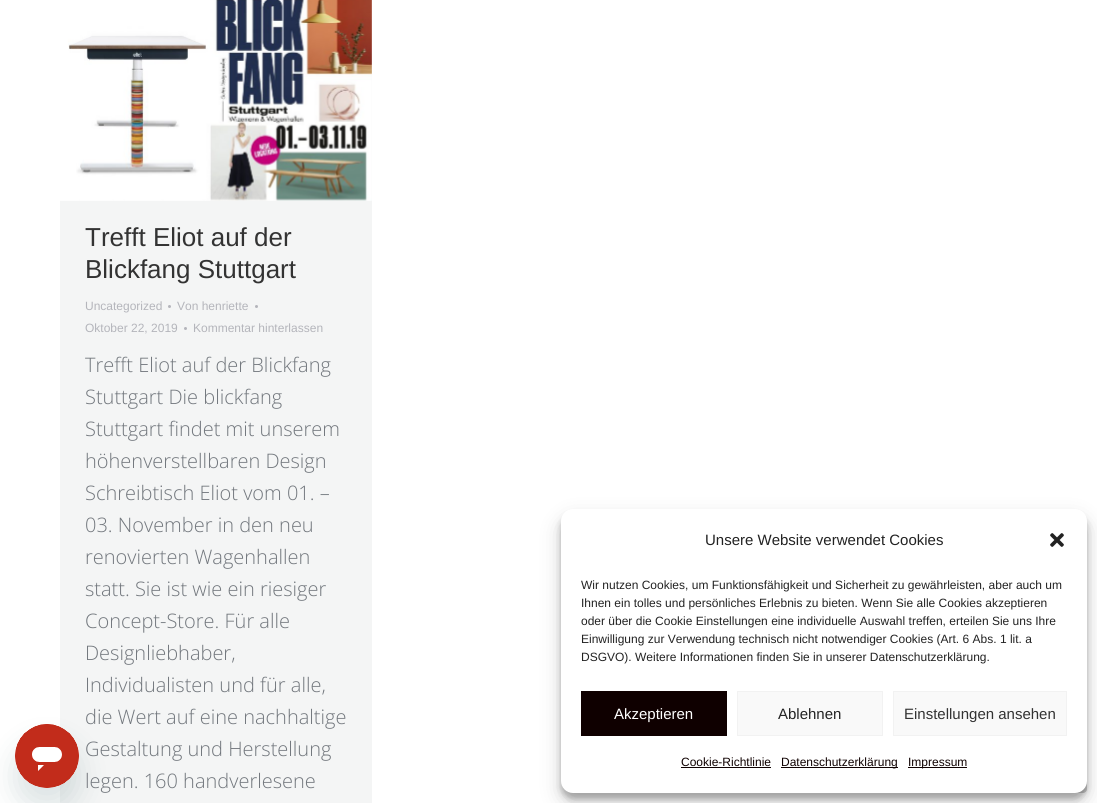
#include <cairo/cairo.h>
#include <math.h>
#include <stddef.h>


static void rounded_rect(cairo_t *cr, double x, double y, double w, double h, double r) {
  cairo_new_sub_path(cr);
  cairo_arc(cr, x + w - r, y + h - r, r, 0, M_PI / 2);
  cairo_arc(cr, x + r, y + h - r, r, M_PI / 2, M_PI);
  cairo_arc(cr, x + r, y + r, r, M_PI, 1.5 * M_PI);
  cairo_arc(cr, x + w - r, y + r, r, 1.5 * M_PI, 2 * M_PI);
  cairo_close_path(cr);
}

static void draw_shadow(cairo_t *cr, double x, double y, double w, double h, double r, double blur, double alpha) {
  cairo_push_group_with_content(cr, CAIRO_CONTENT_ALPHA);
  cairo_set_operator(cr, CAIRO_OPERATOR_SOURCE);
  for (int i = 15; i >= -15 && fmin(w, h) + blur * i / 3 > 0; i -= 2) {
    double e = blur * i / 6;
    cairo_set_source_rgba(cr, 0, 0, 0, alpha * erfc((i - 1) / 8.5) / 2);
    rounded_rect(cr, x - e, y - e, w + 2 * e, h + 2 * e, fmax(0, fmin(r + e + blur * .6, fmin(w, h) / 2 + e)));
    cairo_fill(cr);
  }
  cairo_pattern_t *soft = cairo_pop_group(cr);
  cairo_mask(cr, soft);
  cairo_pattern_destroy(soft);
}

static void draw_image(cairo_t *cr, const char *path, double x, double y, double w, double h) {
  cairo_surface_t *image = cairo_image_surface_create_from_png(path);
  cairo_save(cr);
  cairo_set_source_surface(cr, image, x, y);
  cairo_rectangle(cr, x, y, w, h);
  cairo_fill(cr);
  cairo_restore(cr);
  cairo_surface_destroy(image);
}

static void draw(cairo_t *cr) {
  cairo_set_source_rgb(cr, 1, 1, 1);
  cairo_paint(cr);
  cairo_set_source_rgb(cr, 244 / 255.0, 245 / 255.0, 245 / 255.0);
  cairo_rectangle(cr, 60, 0, 312, 803);
  cairo_fill(cr);
  cairo_set_source_rgb(cr, 23 / 255.0, 73 / 255.0, 77 / 255.0);
  draw_shadow(cr, 15, 744, 64, 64, 32, 15, 0.15);
  draw_image(cr, "images/1.png", 15, 724, 64, 64);
  draw_image(cr, "images/2.png", 60, 0, 312, 201);
  cairo_set_source_rgb(cr, 180 / 255.0, 181 / 255.0, 187 / 255.0);
  cairo_arc(cr, 169.5, 306.5, 1.5, 0, 2 * M_PI);
  cairo_fill(cr);
  cairo_arc(cr, 256.5, 306.5, 1.5, 0, 2 * M_PI);
  cairo_fill(cr);
  cairo_arc(cr, 185.5, 328.5, 1.5, 0, 2 * M_PI);
  cairo_fill(cr);
  cairo_set_source_rgb(cr, 204 / 255.0, 204 / 255.0, 204 / 255.0);
  rounded_rect(cr, 1047, 753, 40, 40, 4);
  cairo_fill(cr);
  cairo_set_source_rgb(cr, 0, 0, 0);
  draw_shadow(cr, 561, 515, 526, 284, 12, 3, 0.23);
  draw_shadow(cr, 561, 519, 526, 284, 12, 10, 0.19);
  cairo_set_source_rgb(cr, 1, 1, 1);
  rounded_rect(cr, 561, 509, 526, 284, 12);
  cairo_fill(cr);
  draw_image(cr, "images/3.png", 1050, 533, 14, 14);
  cairo_set_source_rgb(cr, 15 / 255.0, 0, 0);
  cairo_rectangle(cr, 581, 691, 146, 45);
  cairo_fill(cr);
  cairo_set_source_rgb(cr, 249 / 255.0, 249 / 255.0, 249 / 255.0);
  cairo_rectangle(cr, 737.5, 691.5, 145, 44);
  cairo_fill_preserve(cr);
  cairo_set_source_rgb(cr, 242 / 255.0, 242 / 255.0, 242 / 255.0);
  cairo_set_line_width(cr, 1);
  cairo_stroke(cr);
  cairo_set_source_rgb(cr, 249 / 255.0, 249 / 255.0, 249 / 255.0);
  cairo_rectangle(cr, 893.5, 691.5, 173, 44);
  cairo_fill_preserve(cr);
  cairo_set_source_rgb(cr, 242 / 255.0, 242 / 255.0, 242 / 255.0);
  cairo_stroke(cr);
  cairo_set_source_rgb(cr, 15 / 255.0, 1 / 255.0, 1 / 255.0);
  cairo_rectangle(cr, 681, 767, 90, 1);
  cairo_fill(cr);
  cairo_rectangle(cr, 781, 767, 117, 1);
  cairo_fill(cr);
  cairo_rectangle(cr, 908, 767, 59, 1);
  cairo_fill(cr);
  cairo_select_font_face(cr, "Liberation Sans", CAIRO_FONT_SLANT_NORMAL, CAIRO_FONT_WEIGHT_NORMAL);
  cairo_set_font_size(cr, 26);
  cairo_set_source_rgb(cr, 51 / 255.0, 51 / 255.0, 51 / 255.0);
  cairo_move_to(cr, 85, 246);
  cairo_show_text(cr, "Trefft Eliot auf der");
  cairo_move_to(cr, 85, 278);
  cairo_show_text(cr, "Blickfang Stuttgart");
  cairo_set_font_size(cr, 12);
  cairo_set_source_rgb(cr, 180 / 255.0, 181 / 255.0, 187 / 255.0);
  cairo_move_to(cr, 85, 310);
  cairo_show_text(cr, "Uncategorized");
  cairo_move_to(cr, 177, 310);
  cairo_show_text(cr, "Von henriette");
  cairo_move_to(cr, 85, 332);
  cairo_show_text(cr, "Oktober 22, 2019");
  cairo_move_to(cr, 193, 332);
  cairo_show_text(cr, "Kommentar hinterlassen");
  cairo_select_font_face(cr, "Open Sans Light", CAIRO_FONT_SLANT_NORMAL, CAIRO_FONT_WEIGHT_NORMAL);
  cairo_set_font_size(cr, 20);
  cairo_set_source_rgb(cr, 114 / 255.0, 119 / 255.0, 125 / 255.0);
  cairo_move_to(cr, 85, 372);
  cairo_show_text(cr, "Trefft Eliot auf der Blickfang");
  cairo_move_to(cr, 85, 404);
  cairo_show_text(cr, "Stuttgart Die blickfang");
  cairo_move_to(cr, 85, 436);
  cairo_show_text(cr, "Stuttgart findet mit unserem");
  cairo_move_to(cr, 85, 468);
  cairo_show_text(cr, "höhenverstellbaren Design");
  cairo_move_to(cr, 85, 500);
  cairo_show_text(cr, "Schreibtisch Eliot vom 01. –");
  cairo_move_to(cr, 85, 532);
  cairo_show_text(cr, "03. November in den neu");
  cairo_move_to(cr, 85, 564);
  cairo_show_text(cr, "renovierten Wagenhallen");
  cairo_move_to(cr, 85, 596);
  cairo_show_text(cr, "statt. Sie ist wie ein riesiger");
  cairo_move_to(cr, 85, 628);
  cairo_show_text(cr, "Concept-Store. Für alle");
  cairo_move_to(cr, 85, 660);
  cairo_show_text(cr, "Designliebhaber,");
  cairo_move_to(cr, 85, 692);
  cairo_show_text(cr, "Individualisten und für alle,");
  cairo_move_to(cr, 85, 724);
  cairo_show_text(cr, "die Wert auf eine nachhaltige");
  cairo_move_to(cr, 85, 756);
  cairo_show_text(cr, "Gestaltung und Herstellung");
  cairo_move_to(cr, 85, 788);
  cairo_show_text(cr, "legen. 160 handverlesene");
  cairo_select_font_face(cr, "Liberation Sans", CAIRO_FONT_SLANT_NORMAL, CAIRO_FONT_WEIGHT_NORMAL);
  cairo_set_font_size(cr, 15);
  cairo_set_source_rgb(cr, 34 / 255.0, 34 / 255.0, 34 / 255.0);
  cairo_move_to(cr, 705, 545);
  cairo_show_text(cr, "Unsere Website verwendet Cookies");
  cairo_set_font_size(cr, 12);
  cairo_move_to(cr, 581, 589);
  cairo_show_text(cr, "Wir nutzen Cookies, um Funktionsfähigkeit und Sicherheit zu gewährleisten, aber auch um");
  cairo_move_to(cr, 581, 607);
  cairo_show_text(cr, "Ihnen ein tolles und persönliches Erlebnis zu bieten. Wenn Sie alle Cookies akzeptieren");
  cairo_move_to(cr, 581, 625);
  cairo_show_text(cr, "oder über die Cookie Einstellungen eine individuelle Auswahl treffen, erteilen Sie uns Ihre");
  cairo_move_to(cr, 581, 643);
  cairo_show_text(cr, "Einwilligung zur Verwendung technisch nicht notwendiger Cookies (Art. 6 Abs. 1 lit. a");
  cairo_move_to(cr, 581, 661);
  cairo_show_text(cr, "DSGVO). Weitere Informationen finden Sie in unserer Datenschutzerklärung.");
  cairo_set_font_size(cr, 15);
  cairo_set_source_rgb(cr, 1, 1, 1);
  cairo_move_to(cr, 614, 719);
  cairo_show_text(cr, "Akzeptieren");
  cairo_set_source_rgb(cr, 34 / 255.0, 34 / 255.0, 34 / 255.0);
  cairo_move_to(cr, 778, 719);
  cairo_show_text(cr, "Ablehnen");
  cairo_set_source_rgb(cr, 51 / 255.0, 51 / 255.0, 51 / 255.0);
  cairo_move_to(cr, 904, 719);
  cairo_show_text(cr, "Einstellungen ansehen");
  cairo_set_font_size(cr, 12);
  cairo_set_source_rgb(cr, 15 / 255.0, 1 / 255.0, 1 / 255.0);
  cairo_move_to(cr, 681, 766);
  cairo_show_text(cr, "Cookie-Richtlinie");
  cairo_move_to(cr, 781, 766);
  cairo_show_text(cr, "Datenschutzerklärung");
  cairo_move_to(cr, 908, 766);
  cairo_show_text(cr, "Impressum");
}

int main(void) {
  cairo_surface_t *surface = cairo_image_surface_create(CAIRO_FORMAT_RGB24, 1097, 803);
  cairo_t *cr = cairo_create(surface);
  cairo_font_options_t *options = cairo_font_options_create();
  cairo_font_options_set_hint_metrics(options, CAIRO_HINT_METRICS_OFF);
  cairo_font_options_set_hint_style(options, CAIRO_HINT_STYLE_NONE);
  cairo_set_font_options(cr, options);
  cairo_set_miter_limit(cr, 4);
  draw(cr);
  cairo_surface_write_to_png(surface, "out.png");
  cairo_font_options_destroy(options);
  cairo_destroy(cr);
  cairo_surface_destroy(surface);
  return 0;
}
